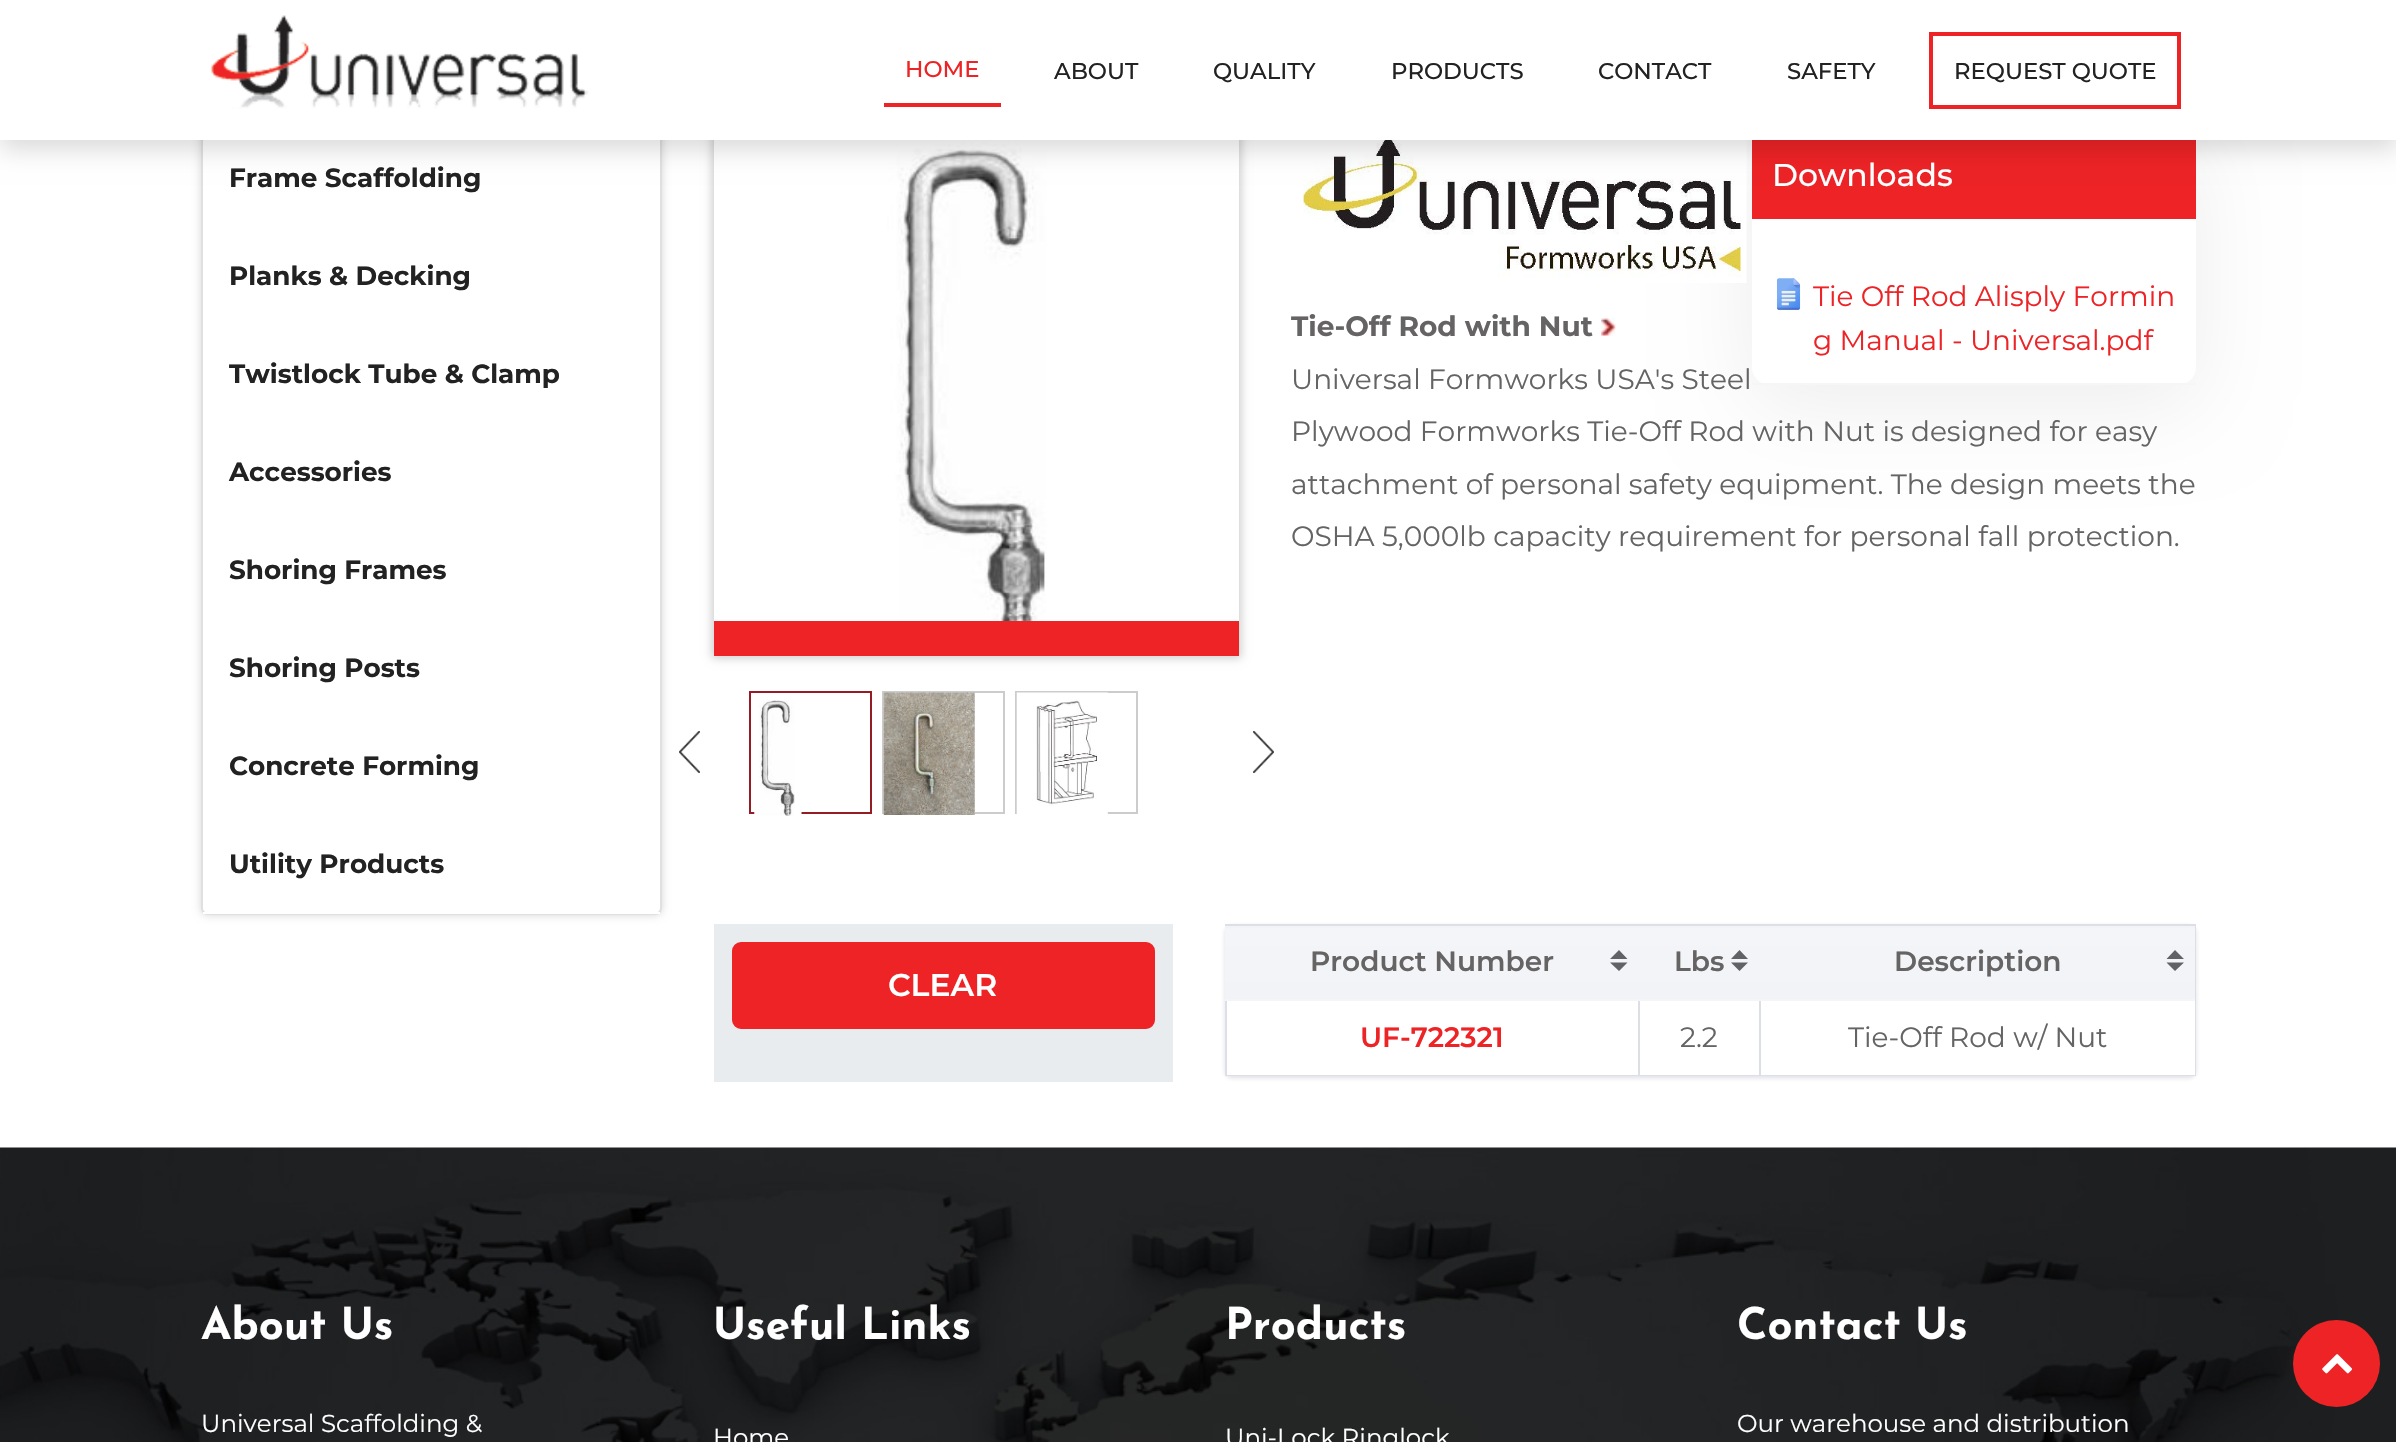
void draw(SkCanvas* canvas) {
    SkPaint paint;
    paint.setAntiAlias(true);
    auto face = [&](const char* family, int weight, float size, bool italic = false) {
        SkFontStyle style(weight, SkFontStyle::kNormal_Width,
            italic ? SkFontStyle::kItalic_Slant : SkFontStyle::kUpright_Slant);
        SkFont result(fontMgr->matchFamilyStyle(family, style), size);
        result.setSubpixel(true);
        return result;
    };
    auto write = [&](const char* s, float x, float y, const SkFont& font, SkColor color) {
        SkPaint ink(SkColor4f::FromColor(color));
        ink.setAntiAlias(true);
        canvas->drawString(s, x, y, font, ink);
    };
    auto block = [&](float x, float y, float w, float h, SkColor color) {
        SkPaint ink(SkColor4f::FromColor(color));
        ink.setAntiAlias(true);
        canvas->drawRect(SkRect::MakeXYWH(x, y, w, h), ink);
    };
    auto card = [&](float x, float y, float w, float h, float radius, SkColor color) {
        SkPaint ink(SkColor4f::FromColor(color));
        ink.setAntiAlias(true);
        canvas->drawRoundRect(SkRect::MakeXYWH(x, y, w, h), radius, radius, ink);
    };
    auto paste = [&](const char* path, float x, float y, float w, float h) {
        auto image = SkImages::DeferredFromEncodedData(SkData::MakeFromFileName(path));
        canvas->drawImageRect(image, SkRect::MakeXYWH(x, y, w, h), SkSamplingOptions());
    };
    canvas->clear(SK_ColorWHITE);
    paint.setColor(SkColorSetARGB(41, 0, 0, 0));
    paint.setMaskFilter(SkMaskFilter::MakeBlur(kNormal_SkBlurStyle, 4.5f));
    canvas->drawRoundRect(SkRect::MakeXYWH(201, -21, 461, 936), 7, 7, paint);
    paint.setMaskFilter(nullptr);
    card(201, -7, 461, 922, 7, SK_ColorWHITE);
    paint.setStyle(SkPaint::kStroke_Style);
    paint.setStrokeWidth(2);
    paint.setColor(SkColorSetARGB(31, 0, 0, 0));
    canvas->drawRoundRect(SkRect::MakeXYWH(202, -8, 459, 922), 6, 6, paint);
    canvas->save();
    canvas->clipPath(SkPathBuilder(SkPathFillType::kEvenOdd).moveTo(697, 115).lineTo(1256, 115).lineTo(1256, 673).lineTo(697, 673).close().moveTo(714, 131).lineTo(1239, 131).lineTo(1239, 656).lineTo(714, 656).close().detach(), true);
    paint.setStyle(SkPaint::kFill_Style);
    paint.setColor(SkColorSetRGB(204, 204, 204));
    paint.setMaskFilter(SkMaskFilter::MakeBlur(kNormal_SkBlurStyle, 4.5f));
    canvas->drawRect(SkRect::MakeXYWH(712, 130, 529, 528), paint);
    paint.setMaskFilter(nullptr);
    canvas->restore();
    paste("pic2.png", 875, 140, 201, 481);
    paint.setColor(SkColorSetARGB(18, 0, 0, 0));
    paint.setMaskFilter(SkMaskFilter::MakeBlur(kNormal_SkBlurStyle, 44));
    canvas->drawRoundRect(SkRect::MakeXYWH(1752, 149, 444, 254), 18, 18, paint);
    paint.setMaskFilter(nullptr);
    paste("pic8.png", 1303, 140, 444, 143);
    card(1752, 131, 444, 254, 18, SK_ColorWHITE);
    block(1752, 140, 444, 79, SkColorSetRGB(237, 35, 38));
    paint.setColor(SkColorSetARGB(38, 0, 0, 0));
    paint.setMaskFilter(SkMaskFilter::MakeBlur(kNormal_SkBlurStyle, 12));
    canvas->drawRect(SkRect::MakeXYWH(0, 9, 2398, 140), paint);
    paint.setMaskFilter(nullptr);
    block(0, 0, 2396, 140, SK_ColorWHITE);
    paste("pic1.png", 210, 15, 379, 94);
    block(884, 103, 117, 4, SkColorSetRGB(237, 35, 38));
    auto kFont1 = face("Montserrat", 500, 22.75f);
    write("HOME", 905, 77, kFont1, SkColorSetRGB(237, 35, 38));
    write("ABOUT", 1054, 79, kFont1, SkColorSetRGB(34, 34, 34));
    write("QUALITY", 1213, 79, kFont1, SkColorSetRGB(34, 34, 34));
    write("PRODUCTS", 1391, 79, kFont1, SkColorSetRGB(34, 34, 34));
    write("CONTACT", 1598, 79, kFont1, SkColorSetRGB(34, 34, 34));
    write("SAFETY", 1787, 79, kFont1, SkColorSetRGB(34, 34, 34));
    paint.setStyle(SkPaint::kStroke_Style);
    paint.setStrokeWidth(4);
    paint.setColor(SkColorSetRGB(237, 35, 38));
    canvas->drawRect(SkRect::MakeXYWH(1931, 34, 248, 73), paint);
    write("REQUEST QUOTE", 1954, 79, kFont1, SkColorSetRGB(34, 34, 34));
    auto kFont2 = face("Montserrat", 700, 26.25f);
    write("Frame Scaffolding", 229, 187, kFont2, SkColorSetRGB(34, 34, 34));
    write("Planks & Decking", 229, 285, kFont2, SkColorSetRGB(34, 34, 34));
    write("Twistlock Tube & Clamp", 229, 383, kFont2, SkColorSetRGB(34, 34, 34));
    write("Accessories", 229, 481, kFont2, SkColorSetRGB(34, 34, 34));
    write("Shoring Frames", 229, 579, kFont2, SkColorSetRGB(34, 34, 34));
    write("Shoring Posts", 229, 677, kFont2, SkColorSetRGB(34, 34, 34));
    write("Concrete Forming", 229, 775, kFont2, SkColorSetRGB(34, 34, 34));
    block(203, 912, 457, 2, SK_ColorWHITE);
    write("Utility Products", 229, 873, kFont2, SkColorSetRGB(34, 34, 34));
    block(714, 621, 525, 35, SkColorSetRGB(237, 35, 38));
    paste("pic3.png", 679, 731, 21, 42);
    paint.setStrokeWidth(2);
    paint.setColor(SkColorSetRGB(149, 27, 37));
    canvas->drawRect(SkRect::MakeXYWH(750, 692, 121, 121), paint);
    paste("pic4.png", 754, 700, 48, 116);
    paint.setColor(SkColorSetRGB(204, 204, 204));
    canvas->drawRect(SkRect::MakeXYWH(883, 692, 121, 121), paint);
    paste("pic5.png", 883, 692, 92, 123);
    canvas->drawRect(SkRect::MakeXYWH(1016, 692, 121, 121), paint);
    paste("pic6.png", 1016, 692, 92, 122);
    paste("pic7.png", 1253, 731, 21, 42);
    auto kFont3 = face("Montserrat", 500, 31.5f);
    write("Downloads", 1772, 186, kFont3, SK_ColorWHITE);
    block(1752, 383, 444, 2, SkColorSetRGB(244, 247, 248));
    paste("pic9.png", 1776, 278, 25, 32);
    auto kFont4 = face("Montserrat", 400, 28);
    write("Tie Off Rod Alisply Formin", 1813, 306, kFont4, SkColorSetRGB(237, 35, 38));
    write("g Manual - Universal.pdf", 1813, 350, kFont4, SkColorSetRGB(237, 35, 38));
    auto kFont5 = face("Montserrat", 700, 28);
    write("Tie-Off Rod with Nut", 1291, 336, kFont5, SkColorSetRGB(101, 99, 99));
    paste("pic10.png", 1601, 318, 15, 18);
    write("Universal Formworks USA's Steel", 1291, 389, kFont4, SkColorSetRGB(101, 99, 99));
    write("Plywood Formworks Tie-Off Rod with Nut is designed for easy", 1291, 441, kFont4, SkColorSetRGB(101, 99, 99));
    write("attachment of personal safety equipment. The design meets the", 1291, 494, kFont4, SkColorSetRGB(101, 99, 99));
    write("OSHA 5,000lb capacity requirement for personal fall protection.", 1291, 546, kFont4, SkColorSetRGB(101, 99, 99));
    block(714, 924, 459, 158, SkColorSetRGB(233, 236, 239));
    paint.setStyle(SkPaint::kFill_Style);
    paint.setColor(SkColorSetRGB(237, 35, 38));
    canvas->drawRoundRect(SkRect::MakeXYWH(733, 943, 421, 85), 8, 8, paint);
    paint.setStyle(SkPaint::kStroke_Style);
    canvas->drawRoundRect(SkRect::MakeXYWH(733, 943, 421, 85), 8, 8, paint);
    auto kFont6 = face("Montserrat", 600, 31.5f);
    write("CLEAR", 888, 996, kFont6, SK_ColorWHITE);
    paint.setStyle(SkPaint::kFill_Style);
    paint.setColor(SkColorSetARGB(15, 50, 50, 93));
    paint.setMaskFilter(SkMaskFilter::MakeBlur(kNormal_SkBlurStyle, 2));
    canvas->drawRoundRect(SkRect::MakeXYWH(1225, 926, 971, 152), 7, 7, paint);
    paint.setMaskFilter(nullptr);
    paint.setColor(SkColorSetARGB(26, 50, 50, 93));
    paint.setMaskFilter(SkMaskFilter::MakeBlur(kNormal_SkBlurStyle, 2.5f));
    canvas->drawRoundRect(SkRect::MakeXYWH(1225, 926, 971, 152), 7, 7, paint);
    paint.setMaskFilter(nullptr);
    block(1227, 1001, 968, 74, SK_ColorWHITE);
    block(1225, 924, 971, 2, SkColorSetRGB(220, 223, 230));
    block(2195, 924, 1, 152, SkColorSetRGB(220, 223, 230));
    block(1225, 1075, 971, 1, SkColorSetRGB(220, 223, 230));
    block(1225, 924, 2, 152, SkColorSetRGB(220, 223, 230));
    {
        const SkColor colors[] = {SkColorSetRGB(244, 245, 248), SkColorSetRGB(241, 243, 246)};
        const float stops[] = {0, 1};
        const SkPoint ends[] = {{1432, 856}, {1432, 928}};
        paint.setShader(SkGradientShader::MakeLinear(ends, colors, stops, 2, SkTileMode::kClamp));
        paint.setAlpha(255);
    }
    canvas->drawRect(SkRect::MakeXYWH(1225, 926, 413, 2), paint);
    {
        const SkColor colors[] = {SkColorSetRGB(244, 245, 248), SkColorSetRGB(241, 243, 246)};
        const float stops[] = {0, 1};
        const SkPoint ends[] = {{1432, 928}, {1432, 999}};
        paint.setShader(SkGradientShader::MakeLinear(ends, colors, stops, 2, SkTileMode::kClamp));
        paint.setAlpha(255);
    }
    canvas->drawRect(SkRect::MakeXYWH(1225, 928, 413, 71), paint);
    {
        const SkColor colors[] = {SkColorSetRGB(244, 245, 248), SkColorSetRGB(241, 243, 246)};
        const float stops[] = {0, 1};
        const SkPoint ends[] = {{1432, 999}, {1432, 1071}};
        paint.setShader(SkGradientShader::MakeLinear(ends, colors, stops, 2, SkTileMode::kClamp));
        paint.setAlpha(255);
    }
    canvas->drawRect(SkRect::MakeXYWH(1225, 999, 413, 2), paint);
    auto kFont7 = face("Montserrat", 600, 28);
    write("Product Number", 1310, 971, kFont7, SkColorSetRGB(101, 99, 99));
    paint.setShader(nullptr);
    paint.setColor(SkColorSetRGB(96, 98, 102));
    canvas->drawPath(SkPathBuilder().moveTo(1610, 962.5f).lineTo(1627.5f, 962.5f).lineTo(1619, 971).close().moveTo(1627.5f, 959).lineTo(1610, 959).lineTo(1619, 950).close().detach(), paint);
    {
        const SkColor colors[] = {SkColorSetRGB(244, 245, 248), SkColorSetRGB(241, 243, 246)};
        const float stops[] = {0, 1};
        const SkPoint ends[] = {{1698, 856}, {1698, 928}};
        paint.setShader(SkGradientShader::MakeLinear(ends, colors, stops, 2, SkTileMode::kClamp));
        paint.setAlpha(255);
    }
    canvas->drawRect(SkRect::MakeXYWH(1638, 926, 121, 2), paint);
    {
        const SkColor colors[] = {SkColorSetRGB(244, 245, 248), SkColorSetRGB(241, 243, 246)};
        const float stops[] = {0, 1};
        const SkPoint ends[] = {{1698, 928}, {1698, 999}};
        paint.setShader(SkGradientShader::MakeLinear(ends, colors, stops, 2, SkTileMode::kClamp));
        paint.setAlpha(255);
    }
    canvas->drawRect(SkRect::MakeXYWH(1638, 928, 121, 71), paint);
    block(1638, 999, 2, 77, SkColorSetRGB(220, 223, 230));
    {
        const SkColor colors[] = {SkColorSetRGB(244, 245, 248), SkColorSetRGB(241, 243, 246)};
        const float stops[] = {0, 1};
        const SkPoint ends[] = {{1698, 999}, {1698, 1071}};
        paint.setShader(SkGradientShader::MakeLinear(ends, colors, stops, 2, SkTileMode::kClamp));
        paint.setAlpha(255);
    }
    canvas->drawRect(SkRect::MakeXYWH(1638, 999, 121, 2), paint);
    write("Lbs", 1674, 971, kFont7, SkColorSetRGB(101, 99, 99));
    paint.setShader(nullptr);
    paint.setColor(SkColorSetRGB(96, 98, 102));
    canvas->drawPath(SkPathBuilder().moveTo(1731, 962.5f).lineTo(1748, 962.5f).lineTo(1739.5f, 971).close().moveTo(1748, 959).lineTo(1731, 959).lineTo(1739.5f, 950).close().detach(), paint);
    {
        const SkColor colors[] = {SkColorSetRGB(244, 245, 248), SkColorSetRGB(241, 243, 246)};
        const float stops[] = {0, 1};
        const SkPoint ends[] = {{1977, 856}, {1977, 928}};
        paint.setShader(SkGradientShader::MakeLinear(ends, colors, stops, 2, SkTileMode::kClamp));
        paint.setAlpha(255);
    }
    canvas->drawRect(SkRect::MakeXYWH(1759, 926, 436, 2), paint);
    {
        const SkColor colors[] = {SkColorSetRGB(244, 245, 248), SkColorSetRGB(241, 243, 246)};
        const float stops[] = {0, 1};
        const SkPoint ends[] = {{1977, 928}, {1977, 999}};
        paint.setShader(SkGradientShader::MakeLinear(ends, colors, stops, 2, SkTileMode::kClamp));
        paint.setAlpha(255);
    }
    canvas->drawRect(SkRect::MakeXYWH(1759, 928, 436, 71), paint);
    block(1759, 999, 2, 77, SkColorSetRGB(220, 223, 230));
    {
        const SkColor colors[] = {SkColorSetRGB(244, 245, 248), SkColorSetRGB(241, 243, 246)};
        const float stops[] = {0, 1};
        const SkPoint ends[] = {{1977, 999}, {1977, 1071}};
        paint.setShader(SkGradientShader::MakeLinear(ends, colors, stops, 2, SkTileMode::kClamp));
        paint.setAlpha(255);
    }
    canvas->drawRect(SkRect::MakeXYWH(1759, 999, 436, 2), paint);
    write("Description", 1894, 971, kFont7, SkColorSetRGB(101, 99, 99));
    paint.setShader(nullptr);
    paint.setColor(SkColorSetRGB(96, 98, 102));
    canvas->drawPath(SkPathBuilder().moveTo(2166.5f, 962.5f).lineTo(2184, 962.5f).lineTo(2175, 971).close().moveTo(2184, 959).lineTo(2166.5f, 959).lineTo(2175, 950).close().detach(), paint);
    write("UF-722321", 1360, 1047, kFont7, SkColorSetRGB(237, 35, 38));
    write("2.2", 1680, 1047, kFont4, SkColorSetRGB(101, 99, 99));
    write("Tie-Off Rod w/ Nut", 1848, 1047, kFont4, SkColorSetRGB(101, 99, 99));
    paste("pic11.png", 0, 1147, 2396, 295);
    auto kFont8 = face("Josefin Sans", 700, 43.75f);
    write("About Us", 201, 1339, kFont8, SK_ColorWHITE);
    auto kFont9 = face("Montserrat", 400, 24.5f);
    write("Universal Scaffolding &", 201, 1432, kFont9, SK_ColorWHITE);
    write("Useful Links", 713, 1339, kFont8, SK_ColorWHITE);
    write("Home", 713, 1446, kFont9, SK_ColorWHITE);
    write("Products", 1225, 1339, kFont8, SK_ColorWHITE);
    write("Uni-Lock Ringlock", 1225, 1446, kFont9, SK_ColorWHITE);
    write("Contact Us", 1737, 1339, kFont8, SK_ColorWHITE);
    write("Our warehouse and distribution", 1737, 1432, kFont9, SK_ColorWHITE);
    paint.setColor(SkColorSetRGB(237, 35, 38));
    canvas->drawCircle(2336.5f, 1363.5f, 43.5f, paint);
    paste("pic12.png", 2322, 1354, 31, 20);
}
